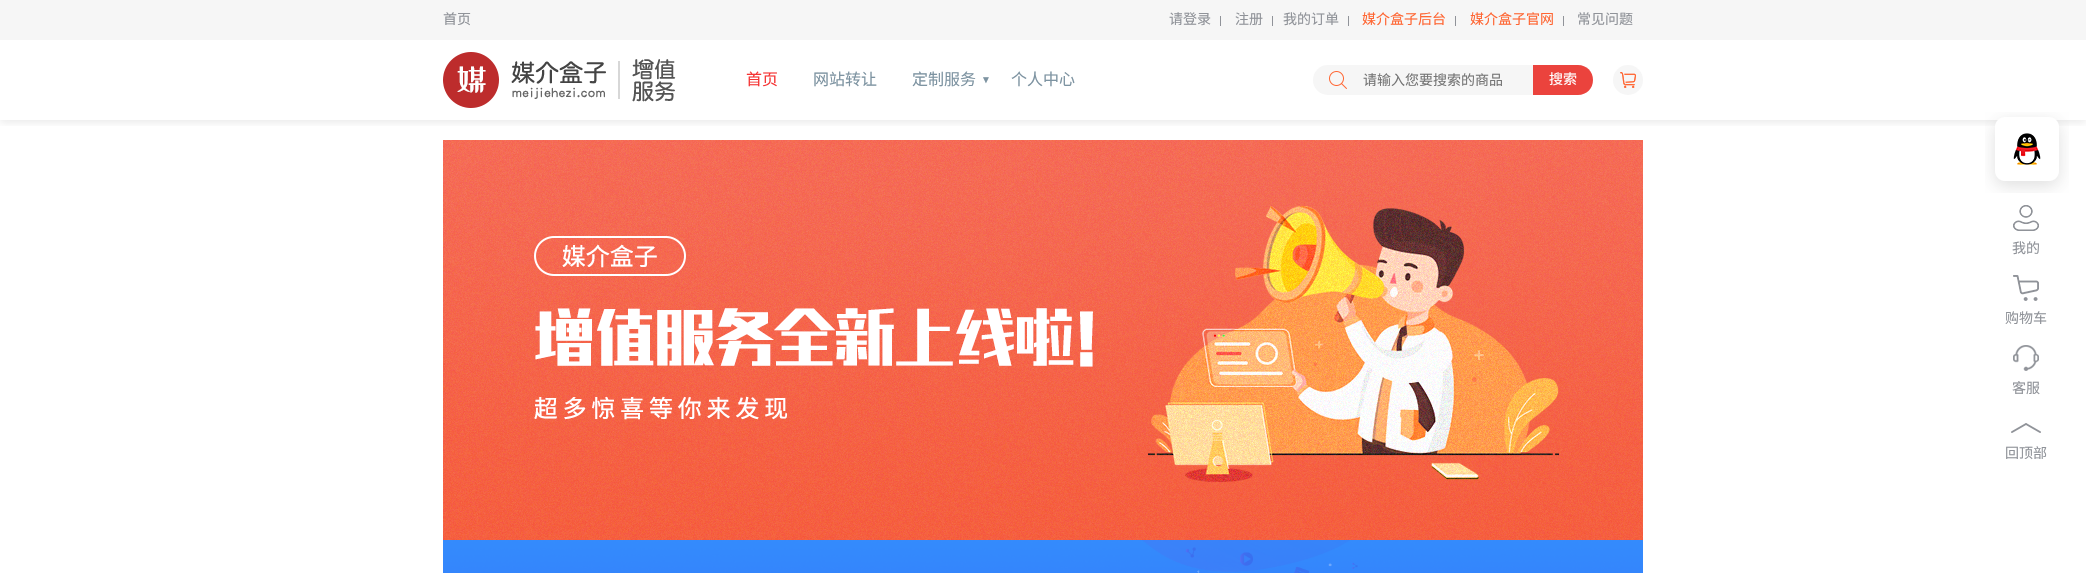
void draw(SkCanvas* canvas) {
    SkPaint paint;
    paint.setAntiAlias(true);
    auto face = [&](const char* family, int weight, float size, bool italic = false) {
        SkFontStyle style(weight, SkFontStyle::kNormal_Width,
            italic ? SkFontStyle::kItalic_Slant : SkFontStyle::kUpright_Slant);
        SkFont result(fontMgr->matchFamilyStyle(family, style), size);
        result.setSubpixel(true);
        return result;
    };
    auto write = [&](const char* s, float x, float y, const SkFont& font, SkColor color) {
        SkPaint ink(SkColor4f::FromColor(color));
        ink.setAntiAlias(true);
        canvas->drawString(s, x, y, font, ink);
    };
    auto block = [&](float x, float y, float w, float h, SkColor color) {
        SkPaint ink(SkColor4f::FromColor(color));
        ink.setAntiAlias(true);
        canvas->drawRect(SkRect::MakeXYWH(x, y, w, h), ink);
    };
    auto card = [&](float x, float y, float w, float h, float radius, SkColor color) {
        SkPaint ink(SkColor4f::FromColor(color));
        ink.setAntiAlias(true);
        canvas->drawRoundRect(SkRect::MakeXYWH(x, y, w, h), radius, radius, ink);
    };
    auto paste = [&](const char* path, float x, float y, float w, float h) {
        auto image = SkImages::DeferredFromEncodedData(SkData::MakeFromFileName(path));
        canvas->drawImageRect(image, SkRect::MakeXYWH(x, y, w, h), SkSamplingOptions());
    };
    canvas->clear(SK_ColorWHITE);
    canvas->save();
    canvas->clipRect(SkRect::MakeXYWH(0, 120, 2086, 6));
    paint.setColor(SkColorSetARGB(26, 15, 16, 16));
    paint.setMaskFilter(SkMaskFilter::MakeBlur(kNormal_SkBlurStyle, 4.5f));
    canvas->drawRect(SkRect::MakeXYWH(0, 2, 2086, 120), paint);
    paint.setMaskFilter(nullptr);
    canvas->restore();
    block(0, 0, 2086, 40, SkColorSetRGB(246, 246, 246));
    auto kFont1 = face("Noto Sans CJK SC", 400, 14);
    write("首页", 443, 24, kFont1, SkColorSetRGB(144, 147, 153));
    write("请登录", 1169, 24, kFont1, SkColorSetRGB(144, 147, 153));
    block(1220, 16, 1, 10, SkColorSetRGB(144, 147, 153));
    write("注册", 1235, 24, kFont1, SkColorSetRGB(144, 147, 153));
    block(1272, 16, 1, 10, SkColorSetRGB(144, 147, 153));
    write("我的订单", 1283, 24, kFont1, SkColorSetRGB(144, 147, 153));
    block(1348, 16, 1, 10, SkColorSetRGB(144, 147, 153));
    write("媒介盒子后台", 1362, 24, kFont1, SkColorSetRGB(255, 102, 51));
    block(1455, 16, 1, 10, SkColorSetRGB(144, 147, 153));
    write("媒介盒子官网", 1470, 24, kFont1, SkColorSetRGB(255, 102, 51));
    block(1563, 16, 1, 10, SkColorSetRGB(144, 147, 153));
    write("常见问题", 1577, 24, kFont1, SkColorSetRGB(144, 147, 153));
    paste("pic1.png", 443, 52, 233, 56);
    auto kFont2 = face("Noto Sans CJK SC", 400, 16);
    write("首页", 746, 85, kFont2, SkColorSetRGB(245, 52, 52));
    write("网站转让", 813, 85, kFont2, SkColorSetRGB(125, 147, 161));
    write("定制服务", 912, 85, kFont2, SkColorSetRGB(125, 147, 161));
    auto kFont3 = face("Liberation Serif", 400, 10);
    write("▼", 981, 83, kFont3, SkColorSetRGB(125, 147, 161));
    write("个人中心", 1011, 85, kFont2, SkColorSetRGB(125, 147, 161));
    card(1313, 65, 280, 30, 15, SkColorSetRGB(246, 246, 246));
    paste("pic2.png", 1329, 71, 18, 18);
    write("请输入您要搜索的商品", 1363, 85, kFont1, SkColorSetRGB(117, 117, 117));
    paint.setColor(SkColorSetRGB(235, 67, 61));
    canvas->drawPath(SkPathBuilder().moveTo(1533, 65).lineTo(1578, 65).cubicTo(1586.5f, 65, 1593, 71.5f, 1593, 80).cubicTo(1593, 88.5f, 1586.5f, 95, 1578, 95).lineTo(1533, 95).close().detach(), paint);
    write("搜索", 1549, 84, kFont1, SK_ColorWHITE);
    paint.setColor(SkColorSetRGB(246, 246, 246));
    canvas->drawCircle(1628, 80, 15, paint);
    paste("pic3.png", 1620, 72, 16, 16);
    paste("pic4.png", 443, 140, 1200, 400);
    paste("pic5.png", 443, 540, 1200, 33);
    paste("pic6.png", 1985, 112, 84, 81);
    paste("pic7.png", 2013, 205, 26, 26);
    write("我的", 2012, 253, kFont1, SkColorSetRGB(144, 147, 153));
    paste("pic8.png", 2013, 275, 26, 26);
    write("购物车", 2005, 323, kFont1, SkColorSetRGB(144, 147, 153));
    paste("pic9.png", 2013, 345, 26, 26);
    write("客服", 2012, 393, kFont1, SkColorSetRGB(144, 147, 153));
    paste("pic10.png", 2011, 423, 30, 10);
    write("回顶部", 2005, 458, kFont1, SkColorSetRGB(144, 147, 153));
}
